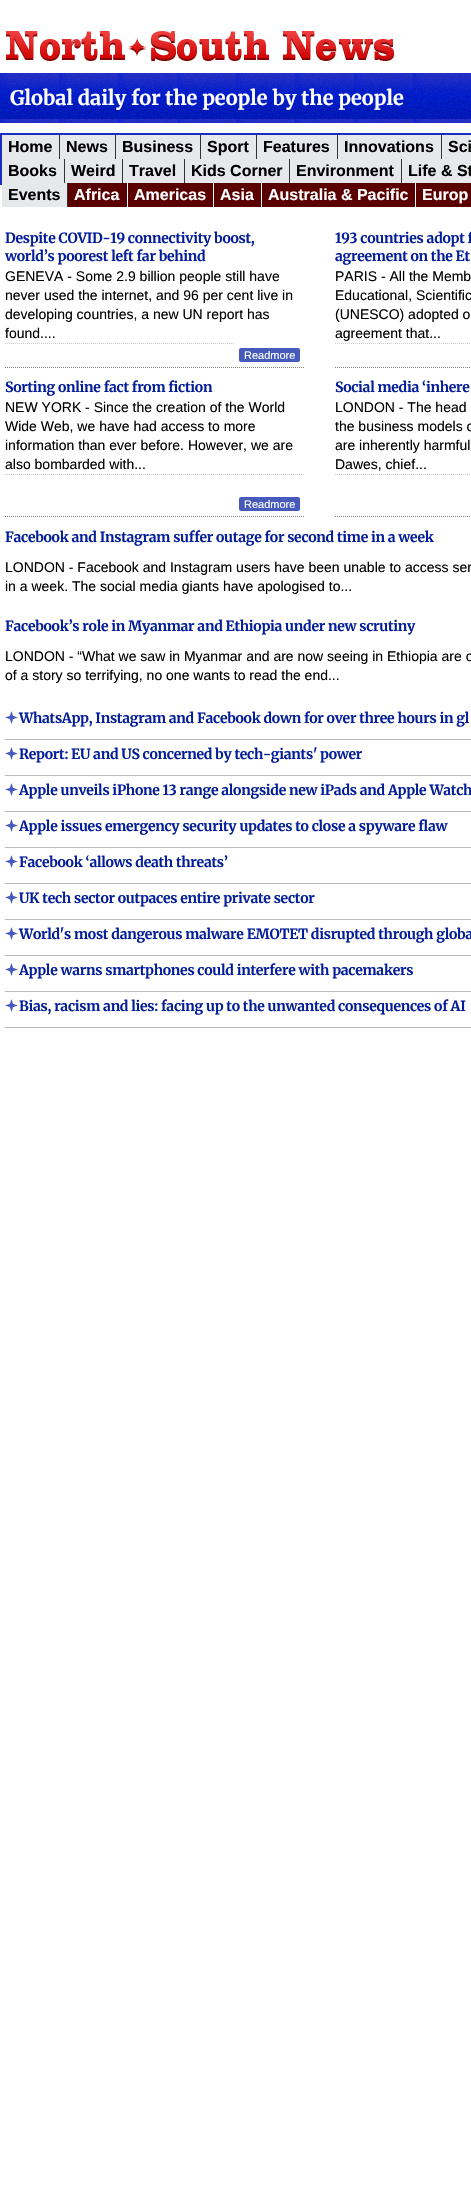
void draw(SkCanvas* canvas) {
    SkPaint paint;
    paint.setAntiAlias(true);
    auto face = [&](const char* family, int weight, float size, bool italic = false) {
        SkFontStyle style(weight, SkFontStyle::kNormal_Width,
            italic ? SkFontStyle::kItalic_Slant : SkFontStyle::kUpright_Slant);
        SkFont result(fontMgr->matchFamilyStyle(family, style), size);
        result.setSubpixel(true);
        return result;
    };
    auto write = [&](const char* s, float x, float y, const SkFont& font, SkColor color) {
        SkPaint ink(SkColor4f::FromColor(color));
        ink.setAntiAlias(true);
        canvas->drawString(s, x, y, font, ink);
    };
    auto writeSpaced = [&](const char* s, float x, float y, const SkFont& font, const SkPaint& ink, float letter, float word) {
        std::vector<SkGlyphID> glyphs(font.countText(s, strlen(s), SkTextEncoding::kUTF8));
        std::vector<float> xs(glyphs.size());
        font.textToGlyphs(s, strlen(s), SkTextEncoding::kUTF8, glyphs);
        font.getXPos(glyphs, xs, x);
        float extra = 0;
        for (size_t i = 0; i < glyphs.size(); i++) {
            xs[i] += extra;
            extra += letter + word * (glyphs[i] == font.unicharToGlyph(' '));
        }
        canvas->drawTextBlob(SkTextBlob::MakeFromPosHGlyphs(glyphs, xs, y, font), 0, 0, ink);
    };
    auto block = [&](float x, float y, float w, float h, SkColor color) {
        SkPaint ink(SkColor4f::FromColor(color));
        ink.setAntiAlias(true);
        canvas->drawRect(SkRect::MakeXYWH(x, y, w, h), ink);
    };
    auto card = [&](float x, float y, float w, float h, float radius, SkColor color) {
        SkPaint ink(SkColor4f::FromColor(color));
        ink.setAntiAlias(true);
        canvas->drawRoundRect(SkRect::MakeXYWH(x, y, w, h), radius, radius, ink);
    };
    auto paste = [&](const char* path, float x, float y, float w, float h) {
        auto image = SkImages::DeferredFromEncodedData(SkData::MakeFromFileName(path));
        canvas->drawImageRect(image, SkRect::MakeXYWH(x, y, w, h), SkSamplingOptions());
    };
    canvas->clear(SK_ColorWHITE);
    paste("pic1.png", 6, 31, 388, 30);
    paste("pic2.png", 0, 73, 471, 50);
    auto kFont1 = face("Merriweather", 700, 20);
    write("Global daily for the people by the people", 10, 105, kFont1, SK_ColorWHITE);
    paint.setStyle(SkPaint::kStroke_Style);
    paint.setStrokeWidth(2);
    paint.setColor(SkColorSetRGB(24, 45, 193));
    canvas->drawRect(SkRect::MakeXYWH(1, 134, 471, 50), paint);
    block(2, 135, 57, 24, SkColorSetRGB(231, 232, 236));
    block(59, 135, 1, 24, SkColorSetRGB(51, 51, 51));
    auto kFont2 = face("Liberation Sans", 700, 16);
    write("Home", 8, 152, kFont2, SK_ColorBLACK);
    block(60, 135, 55, 24, SkColorSetRGB(231, 232, 236));
    block(115, 135, 1, 24, SkColorSetRGB(51, 51, 51));
    write("News", 66, 152, kFont2, SK_ColorBLACK);
    block(116, 135, 84, 24, SkColorSetRGB(231, 232, 236));
    block(200, 135, 1, 24, SkColorSetRGB(51, 51, 51));
    write("Business", 122, 152, kFont2, SK_ColorBLACK);
    block(201, 135, 55, 24, SkColorSetRGB(231, 232, 236));
    block(256, 135, 1, 24, SkColorSetRGB(51, 51, 51));
    write("Sport", 207, 152, kFont2, SK_ColorBLACK);
    block(257, 135, 80, 24, SkColorSetRGB(231, 232, 236));
    block(337, 135, 1, 24, SkColorSetRGB(51, 51, 51));
    write("Features", 263, 152, kFont2, SK_ColorBLACK);
    block(338, 135, 103, 24, SkColorSetRGB(231, 232, 236));
    block(441, 135, 1, 24, SkColorSetRGB(51, 51, 51));
    write("Innovations", 344, 152, kFont2, SK_ColorBLACK);
    block(442, 135, 29, 24, SkColorSetRGB(231, 232, 236));
    write("Sci", 448, 152, kFont2, SK_ColorBLACK);
    block(2, 159, 62, 24, SkColorSetRGB(231, 232, 236));
    block(64, 159, 1, 24, SkColorSetRGB(51, 51, 51));
    write("Books", 8, 176, kFont2, SK_ColorBLACK);
    block(65, 159, 57, 24, SkColorSetRGB(231, 232, 236));
    block(122, 159, 1, 24, SkColorSetRGB(51, 51, 51));
    write("Weird", 71, 176, kFont2, SK_ColorBLACK);
    block(123, 159, 61, 24, SkColorSetRGB(231, 232, 236));
    block(184, 159, 1, 24, SkColorSetRGB(51, 51, 51));
    write("Travel", 129, 176, kFont2, SK_ColorBLACK);
    block(185, 159, 104, 24, SkColorSetRGB(231, 232, 236));
    block(289, 159, 1, 24, SkColorSetRGB(51, 51, 51));
    write("Kids Corner", 191, 176, kFont2, SK_ColorBLACK);
    block(290, 159, 111, 24, SkColorSetRGB(231, 232, 236));
    block(401, 159, 1, 24, SkColorSetRGB(51, 51, 51));
    write("Environment", 296, 176, kFont2, SK_ColorBLACK);
    block(402, 159, 69, 24, SkColorSetRGB(231, 232, 236));
    write("Life & St", 408, 176, kFont2, SK_ColorBLACK);
    block(2, 183, 65, 24, SkColorSetRGB(231, 232, 236));
    block(67, 183, 1, 24, SkColorSetRGB(51, 51, 51));
    write("Events", 8, 200, kFont2, SK_ColorBLACK);
    block(68, 183, 59, 24, SkColorSetRGB(91, 0, 0));
    block(127, 183, 1, 2, SK_ColorWHITE);
    write("Africa", 74, 200, kFont2, SK_ColorWHITE);
    block(128, 183, 85, 24, SkColorSetRGB(91, 0, 0));
    block(213, 183, 1, 2, SK_ColorWHITE);
    write("Americas", 134, 200, kFont2, SK_ColorWHITE);
    block(214, 183, 47, 24, SkColorSetRGB(91, 0, 0));
    block(261, 183, 1, 2, SK_ColorWHITE);
    write("Asia", 220, 200, kFont2, SK_ColorWHITE);
    block(262, 183, 153, 24, SkColorSetRGB(91, 0, 0));
    block(415, 183, 1, 2, SK_ColorWHITE);
    write("Australia & Pacific", 268, 200, kFont2, SK_ColorWHITE);
    block(416, 183, 55, 24, SkColorSetRGB(91, 0, 0));
    write("Europ", 422, 200, kFont2, SK_ColorWHITE);
    paint.setStrokeWidth(1);
    paint.setColor(SkColorSetRGB(128, 128, 128));
    paint.setPathEffect(SkDashPathEffect::Make({{1, 1}}, 0));
    canvas->drawPath(SkPathBuilder().moveTo(5, 367.5f).lineTo(305, 367.5f).detach(), paint);
    paint.setPathEffect(nullptr);
    auto kFont3 = face("Merriweather", 700, 14);
    paint.setStyle(SkPaint::kFill_Style);
    paint.setColor(SkColorSetRGB(4, 30, 153));
    writeSpaced("Despite COVID-19 connectivity boost,", 5, 243, kFont3, paint, -0.28f, 0);
    writeSpaced("world’s poorest left far behind", 5, 261, kFont3, paint, -0.28f, 0);
    auto kFont4 = face("Liberation Sans", 400, 14);
    write("GENEVA - Some 2.9 billion people still have", 5, 281, kFont4, SK_ColorBLACK);
    write("never used the internet, and 96 per cent live in", 5, 300, kFont4, SK_ColorBLACK);
    write("developing countries, a new UN report has", 5, 319, kFont4, SK_ColorBLACK);
    write("found....", 5, 338, kFont4, SK_ColorBLACK);
    paint.setStyle(SkPaint::kStroke_Style);
    paint.setColor(SkColorSetRGB(204, 204, 204));
    paint.setPathEffect(SkDashPathEffect::Make({{1, 1}}, 0));
    canvas->drawPath(SkPathBuilder().moveTo(5, 343.5f).lineTo(305, 343.5f).detach(), paint);
    paint.setPathEffect(nullptr);
    block(235, 343, 69, 1, SK_ColorWHITE);
    card(239, 348, 61, 14, 2, SkColorSetRGB(69, 90, 187));
    auto kFont5 = face("Liberation Sans", 400, 11);
    write("Readmore", 244, 359, kFont5, SK_ColorWHITE);
    paint.setColor(SkColorSetRGB(128, 128, 128));
    paint.setPathEffect(SkDashPathEffect::Make({{1, 1}}, 0));
    canvas->drawPath(SkPathBuilder().moveTo(335, 367.5f).lineTo(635, 367.5f).detach(), paint);
    paint.setPathEffect(nullptr);
    paint.setStyle(SkPaint::kFill_Style);
    paint.setColor(SkColorSetRGB(4, 30, 153));
    writeSpaced("193 countries adopt f", 335, 243, kFont3, paint, -0.28f, 0);
    writeSpaced("agreement on the Et", 335, 261, kFont3, paint, -0.28f, 0);
    write("PARIS - All the Memb", 335, 281, kFont4, SK_ColorBLACK);
    write("Educational, Scientific", 335, 300, kFont4, SK_ColorBLACK);
    write("(UNESCO) adopted o", 335, 319, kFont4, SK_ColorBLACK);
    write("agreement that...", 335, 338, kFont4, SK_ColorBLACK);
    paint.setStyle(SkPaint::kStroke_Style);
    paint.setColor(SkColorSetRGB(204, 204, 204));
    paint.setPathEffect(SkDashPathEffect::Make({{1, 1}}, 0));
    canvas->drawPath(SkPathBuilder().moveTo(335, 343.5f).lineTo(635, 343.5f).detach(), paint);
    paint.setPathEffect(nullptr);
    paint.setColor(SkColorSetRGB(128, 128, 128));
    paint.setPathEffect(SkDashPathEffect::Make({{1, 1}}, 0));
    canvas->drawPath(SkPathBuilder().moveTo(5, 516.5f).lineTo(305, 516.5f).detach(), paint);
    paint.setPathEffect(nullptr);
    paint.setStyle(SkPaint::kFill_Style);
    paint.setColor(SkColorSetRGB(4, 30, 153));
    writeSpaced("Sorting online fact from fiction", 5, 392, kFont3, paint, -0.28f, 0);
    write("NEW YORK - Since the creation of the World", 5, 412, kFont4, SK_ColorBLACK);
    write("Wide Web, we have had access to more", 5, 431, kFont4, SK_ColorBLACK);
    write("information than ever before. However, we are", 5, 450, kFont4, SK_ColorBLACK);
    write("also bombarded with...", 5, 469, kFont4, SK_ColorBLACK);
    paint.setStyle(SkPaint::kStroke_Style);
    paint.setColor(SkColorSetRGB(204, 204, 204));
    paint.setPathEffect(SkDashPathEffect::Make({{1, 1}}, 0));
    canvas->drawPath(SkPathBuilder().moveTo(5, 474.5f).lineTo(305, 474.5f).detach(), paint);
    paint.setPathEffect(nullptr);
    card(239, 497, 61, 14, 2, SkColorSetRGB(69, 90, 187));
    write("Readmore", 244, 508, kFont5, SK_ColorWHITE);
    paint.setColor(SkColorSetRGB(128, 128, 128));
    paint.setPathEffect(SkDashPathEffect::Make({{1, 1}}, 0));
    canvas->drawPath(SkPathBuilder().moveTo(335, 516.5f).lineTo(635, 516.5f).detach(), paint);
    paint.setPathEffect(nullptr);
    paint.setStyle(SkPaint::kFill_Style);
    paint.setColor(SkColorSetRGB(4, 30, 153));
    writeSpaced("Social media ‘inhere", 335, 392, kFont3, paint, -0.28f, 0);
    write("LONDON - The head", 335, 412, kFont4, SK_ColorBLACK);
    write("the business models o", 335, 431, kFont4, SK_ColorBLACK);
    write("are inherently harmful", 335, 450, kFont4, SK_ColorBLACK);
    write("Dawes, chief...", 335, 469, kFont4, SK_ColorBLACK);
    paint.setStyle(SkPaint::kStroke_Style);
    paint.setColor(SkColorSetRGB(204, 204, 204));
    paint.setPathEffect(SkDashPathEffect::Make({{1, 1}}, 0));
    canvas->drawPath(SkPathBuilder().moveTo(335, 474.5f).lineTo(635, 474.5f).detach(), paint);
    paint.setPathEffect(nullptr);
    paint.setStyle(SkPaint::kFill_Style);
    paint.setColor(SkColorSetRGB(4, 30, 153));
    writeSpaced("Facebook and Instagram suffer outage for second time in a week", 5, 542, kFont3, paint, -0.28f, 0);
    write("LONDON - Facebook and Instagram users have been unable to access ser", 5, 572, kFont4, SK_ColorBLACK);
    write("in a week. The social media giants have apologised to...", 5, 591, kFont4, SK_ColorBLACK);
    writeSpaced("Facebook’s role in Myanmar and Ethiopia under new scrutiny", 5, 631, kFont3, paint, -0.28f, 0);
    write("LONDON - “What we saw in Myanmar and are now seeing in Ethiopia are o", 5, 661, kFont4, SK_ColorBLACK);
    write("of a story so terrifying, no one wants to read the end...", 5, 680, kFont4, SK_ColorBLACK);
    block(5, 739, 466, 1, SkColorSetRGB(187, 187, 187));
    paste("pic3.png", 5, 711, 13, 13);
    writeSpaced("WhatsApp, Instagram and Facebook down for over three hours in gl", 19, 723, kFont3, paint, -0.28f, 0);
    block(5, 775, 466, 1, SkColorSetRGB(187, 187, 187));
    paste("pic3.png", 5, 747, 13, 13);
    writeSpaced("Report: EU and US concerned by tech-giants' power", 19, 759, kFont3, paint, -0.28f, 0);
    block(5, 811, 466, 1, SkColorSetRGB(187, 187, 187));
    paste("pic3.png", 5, 783, 13, 13);
    writeSpaced("Apple unveils iPhone 13 range alongside new iPads and Apple Watch", 19, 795, kFont3, paint, -0.28f, 0);
    block(5, 847, 466, 1, SkColorSetRGB(187, 187, 187));
    paste("pic3.png", 5, 819, 13, 13);
    writeSpaced("Apple issues emergency security updates to close a spyware flaw", 19, 831, kFont3, paint, -0.28f, 0);
    block(5, 883, 466, 1, SkColorSetRGB(187, 187, 187));
    paste("pic3.png", 5, 855, 13, 13);
    writeSpaced("Facebook ‘allows death threats’", 19, 867, kFont3, paint, -0.28f, 0);
    block(5, 919, 466, 1, SkColorSetRGB(187, 187, 187));
    paste("pic3.png", 5, 891, 13, 13);
    writeSpaced("UK tech sector outpaces entire private sector", 19, 903, kFont3, paint, -0.28f, 0);
    block(5, 955, 466, 1, SkColorSetRGB(187, 187, 187));
    paste("pic3.png", 5, 927, 13, 13);
    writeSpaced("World's most dangerous malware EMOTET disrupted through globa", 19, 939, kFont3, paint, -0.28f, 0);
    block(5, 991, 466, 1, SkColorSetRGB(187, 187, 187));
    paste("pic3.png", 5, 963, 13, 13);
    writeSpaced("Apple warns smartphones could interfere with pacemakers", 19, 975, kFont3, paint, -0.28f, 0);
    block(5, 1027, 466, 1, SkColorSetRGB(187, 187, 187));
    paste("pic3.png", 5, 999, 13, 13);
    writeSpaced("Bias, racism and lies: facing up to the unwanted consequences of AI", 19, 1011, kFont3, paint, -0.28f, 0);
}
